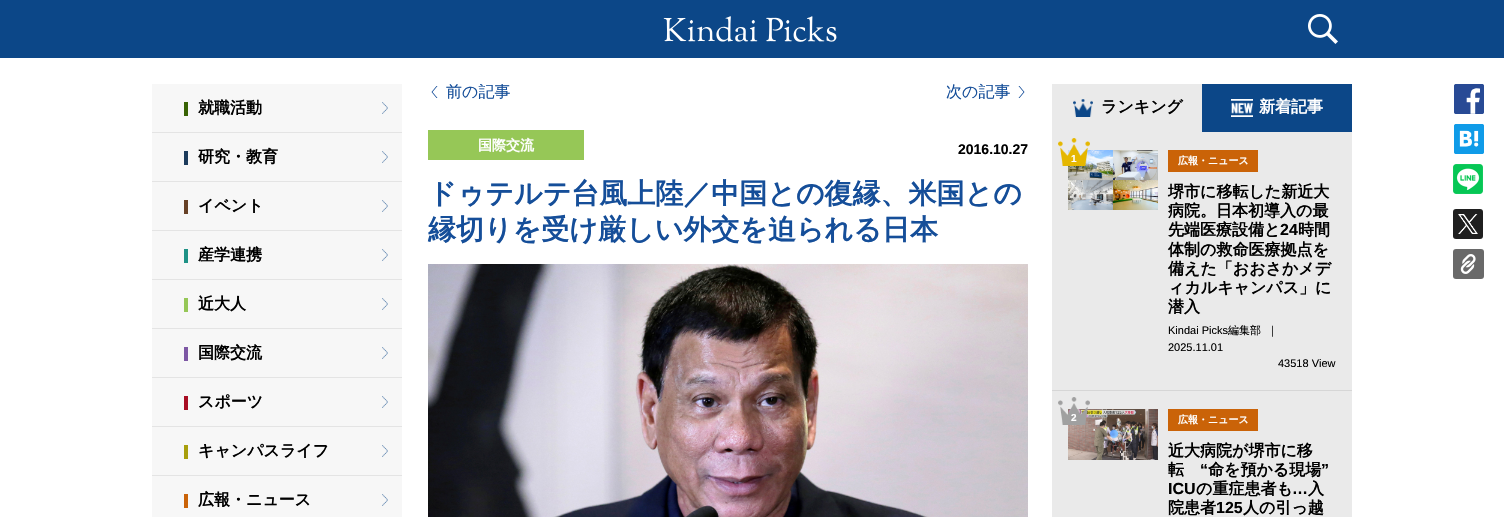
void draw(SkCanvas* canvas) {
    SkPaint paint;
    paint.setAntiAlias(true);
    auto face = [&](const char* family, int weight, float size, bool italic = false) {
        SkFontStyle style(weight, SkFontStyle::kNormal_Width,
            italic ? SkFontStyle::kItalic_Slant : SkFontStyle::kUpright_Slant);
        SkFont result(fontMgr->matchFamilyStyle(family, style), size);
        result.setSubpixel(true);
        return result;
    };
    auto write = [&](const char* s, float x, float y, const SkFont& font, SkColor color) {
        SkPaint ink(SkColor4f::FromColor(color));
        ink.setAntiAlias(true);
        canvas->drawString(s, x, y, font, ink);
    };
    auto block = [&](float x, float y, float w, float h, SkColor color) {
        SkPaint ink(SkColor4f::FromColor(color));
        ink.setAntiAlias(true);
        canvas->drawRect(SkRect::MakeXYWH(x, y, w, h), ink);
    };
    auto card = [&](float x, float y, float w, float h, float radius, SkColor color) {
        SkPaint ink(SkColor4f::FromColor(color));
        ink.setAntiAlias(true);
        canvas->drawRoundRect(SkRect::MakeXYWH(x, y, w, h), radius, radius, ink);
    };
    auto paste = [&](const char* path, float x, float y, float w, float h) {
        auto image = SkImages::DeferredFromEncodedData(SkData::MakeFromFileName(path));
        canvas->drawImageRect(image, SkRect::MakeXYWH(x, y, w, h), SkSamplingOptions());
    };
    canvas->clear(SK_ColorWHITE);
    block(0, 0, 1504, 58, SkColorSetRGB(12, 71, 136));
    paste("pic1.png", 663, 16, 174, 26);
    paste("pic2.png", 1308, 14, 30, 30);
    block(152, 84, 250, 433, SkColorSetRGB(247, 247, 247));
    block(152, 132, 250, 1, SkColorSetRGB(228, 228, 228));
    paste("pic3.png", 382, 102, 6, 12);
    block(184, 102, 4, 14, SkColorSetRGB(56, 99, 4));
    auto kFont1 = face("WenQuanYi Zen Hei", 700, 16);
    write("就職活動", 198, 113, kFont1, SK_ColorBLACK);
    block(152, 181, 250, 1, SkColorSetRGB(228, 228, 228));
    paste("pic3.png", 382, 151, 6, 12);
    block(184, 151, 4, 14, SkColorSetRGB(28, 59, 92));
    write("研究・教育", 198, 162, kFont1, SK_ColorBLACK);
    block(152, 230, 250, 1, SkColorSetRGB(228, 228, 228));
    paste("pic3.png", 382, 200, 6, 12);
    block(184, 200, 4, 14, SkColorSetRGB(103, 65, 38));
    write("イベント", 198, 211, kFont1, SK_ColorBLACK);
    block(152, 279, 250, 1, SkColorSetRGB(228, 228, 228));
    paste("pic3.png", 382, 249, 6, 12);
    block(184, 249, 4, 14, SkColorSetRGB(30, 146, 134));
    write("産学連携", 198, 260, kFont1, SK_ColorBLACK);
    block(152, 328, 250, 1, SkColorSetRGB(228, 228, 228));
    paste("pic3.png", 382, 298, 6, 12);
    block(184, 298, 4, 14, SkColorSetRGB(150, 199, 87));
    write("近大人", 198, 309, kFont1, SK_ColorBLACK);
    block(152, 377, 250, 1, SkColorSetRGB(228, 228, 228));
    paste("pic3.png", 382, 347, 6, 12);
    block(184, 347, 4, 14, SkColorSetRGB(125, 87, 164));
    write("国際交流", 198, 358, kFont1, SK_ColorBLACK);
    block(152, 426, 250, 1, SkColorSetRGB(228, 228, 228));
    paste("pic3.png", 382, 396, 6, 12);
    block(184, 396, 4, 14, SkColorSetRGB(168, 13, 35));
    write("スポーツ", 198, 407, kFont1, SK_ColorBLACK);
    block(152, 475, 250, 1, SkColorSetRGB(228, 228, 228));
    paste("pic3.png", 382, 445, 6, 12);
    block(184, 445, 4, 14, SkColorSetRGB(168, 159, 13));
    write("キャンパスライフ", 198, 456, kFont1, SK_ColorBLACK);
    paste("pic3.png", 382, 494, 6, 12);
    block(184, 494, 4, 14, SkColorSetRGB(202, 99, 8));
    write("広報・ニュース", 198, 505, kFont1, SK_ColorBLACK);
    paint.setColor(SkColorSetRGB(20, 77, 153));
    canvas->drawPath(SkPathBuilder().moveTo(436.5f, 86).lineTo(437.5f, 86).lineTo(432.5f, 92).lineTo(431.5f, 92).close().moveTo(431.5f, 92).lineTo(432.5f, 92).lineTo(437.5f, 98).lineTo(436.5f, 98).close().detach(), paint);
    canvas->save();
    canvas->clipRect(SkRect::MakeXYWH(428, 84, 600, 16));
    auto kFont2 = face("WenQuanYi Zen Hei", 500, 16);
    write("前の記事", 446, 97, kFont2, SkColorSetRGB(21, 78, 153));
    canvas->restore();
    write("次の記事", 946, 97, kFont2, SkColorSetRGB(21, 78, 153));
    canvas->drawPath(SkPathBuilder().moveTo(1018.5f, 86).lineTo(1019.5f, 86).lineTo(1024.5f, 92).lineTo(1023.5f, 92).close().moveTo(1023.5f, 92).lineTo(1024.5f, 92).lineTo(1019.5f, 98).lineTo(1018.5f, 98).close().detach(), paint);
    block(428, 130, 156, 30, SkColorSetRGB(150, 199, 87));
    auto kFont3 = face("WenQuanYi Zen Hei", 700, 14);
    write("国際交流", 478, 150, kFont3, SK_ColorWHITE);
    auto kFont4 = face("Liberation Sans", 700, 14);
    write("2016.10.27", 958, 154, kFont4, SK_ColorBLACK);
    auto kFont5 = face("WenQuanYi Zen Hei", 700, 28);
    write("ドゥテルテ台風上陸／中国との復縁、米国との", 428, 203, kFont5, SkColorSetRGB(21, 78, 153));
    write("縁切りを受け厳しい外交を迫られる日本", 428, 239, kFont5, SkColorSetRGB(21, 78, 153));
    paste("pic4.png", 428, 264, 600, 253);
    block(1052, 84, 300, 433, SkColorSetRGB(234, 234, 234));
    paste("pic5.png", 1073, 99, 20, 18);
    write("ランキング", 1101, 112, kFont1, SK_ColorBLACK);
    block(1202, 84, 150, 48, SkColorSetRGB(12, 71, 136));
    paste("pic6.png", 1231, 99, 22, 18);
    write("新着記事", 1259, 112, kFont1, SK_ColorWHITE);
    paste("pic7.png", 1068, 150, 90, 60);
    paste("pic8.png", 1058, 138, 32, 28);
    auto kFont6 = face("Liberation Sans", 700, 10);
    write("1", 1071, 162, kFont6, SK_ColorWHITE);
    block(1168, 150, 90, 22, SkColorSetRGB(202, 99, 8));
    auto kFont7 = face("WenQuanYi Zen Hei", 700, 10);
    write("広報・ニュース", 1178, 164, kFont7, SK_ColorWHITE);
    write("堺市に移転した新近大", 1168, 197, kFont1, SK_ColorBLACK);
    write("病院。日本初導入の最", 1168, 216, kFont1, SK_ColorBLACK);
    write("先端医療設備と", 1168, 235, kFont1, SK_ColorBLACK);
    auto kFont8 = face("Liberation Sans", 700, 16);
    write("24", 1280, 235, kFont8, SK_ColorBLACK);
    write("時間", 1298, 235, kFont1, SK_ColorBLACK);
    write("体制の救命医療拠点を", 1168, 255, kFont1, SK_ColorBLACK);
    write("備えた「おおさかメデ", 1168, 274, kFont1, SK_ColorBLACK);
    write("ィカルキャンパス」に", 1168, 293, kFont1, SK_ColorBLACK);
    write("潜入", 1168, 312, kFont1, SK_ColorBLACK);
    auto kFont9 = face("Liberation Sans", 400, 11);
    write("Kindai Picks", 1168, 334, kFont9, SK_ColorBLACK);
    auto kFont10 = face("WenQuanYi Zen Hei", 500, 11);
    write("編集部", 1228, 334, kFont10, SK_ColorBLACK);
    write("｜", 1267, 334, kFont10, SK_ColorBLACK);
    write("2025.11.01", 1168, 351, kFont9, SK_ColorBLACK);
    write("43518 View", 1278, 367, kFont9, SK_ColorBLACK);
    block(1052, 390, 300, 1, SkColorSetRGB(214, 214, 214));
    paste("pic9.png", 1068, 409, 90, 51);
    paste("pic10.png", 1058, 397, 32, 28);
    write("2", 1071, 421, kFont6, SK_ColorWHITE);
    block(1168, 409, 90, 22, SkColorSetRGB(202, 99, 8));
    write("広報・ニュース", 1178, 423, kFont7, SK_ColorWHITE);
    write("近大病院が堺市に移", 1168, 456, kFont1, SK_ColorBLACK);
    write("転", 1168, 475, kFont1, SK_ColorBLACK);
    write("“", 1200, 475, kFont8, SK_ColorBLACK);
    write("命を預かる現場", 1208, 475, kFont1, SK_ColorBLACK);
    write("”", 1321, 475, kFont8, SK_ColorBLACK);
    write("ICU", 1168, 494, kFont8, SK_ColorBLACK);
    write("の重症患者も", 1196, 494, kFont1, SK_ColorBLACK);
    write("…", 1292, 494, kFont8, SK_ColorBLACK);
    write("入", 1308, 494, kFont1, SK_ColorBLACK);
    write("院患者", 1168, 513, kFont1, SK_ColorBLACK);
    write("125", 1216, 513, kFont8, SK_ColorBLACK);
    write("人の引っ越", 1243, 513, kFont1, SK_ColorBLACK);
    paste("pic11.png", 1454, 84, 30, 30);
    paste("pic12.png", 1454, 124, 30, 30);
    paste("pic13.png", 1453, 164, 30, 30);
    card(1453, 209, 30, 30, 3, SkColorSetRGB(31, 31, 31));
    paste("pic14.png", 1458, 214, 20, 20);
    card(1453, 249, 31, 30, 3, SkColorSetRGB(105, 105, 105));
    paste("pic15.png", 1460, 254, 16, 20);
}
